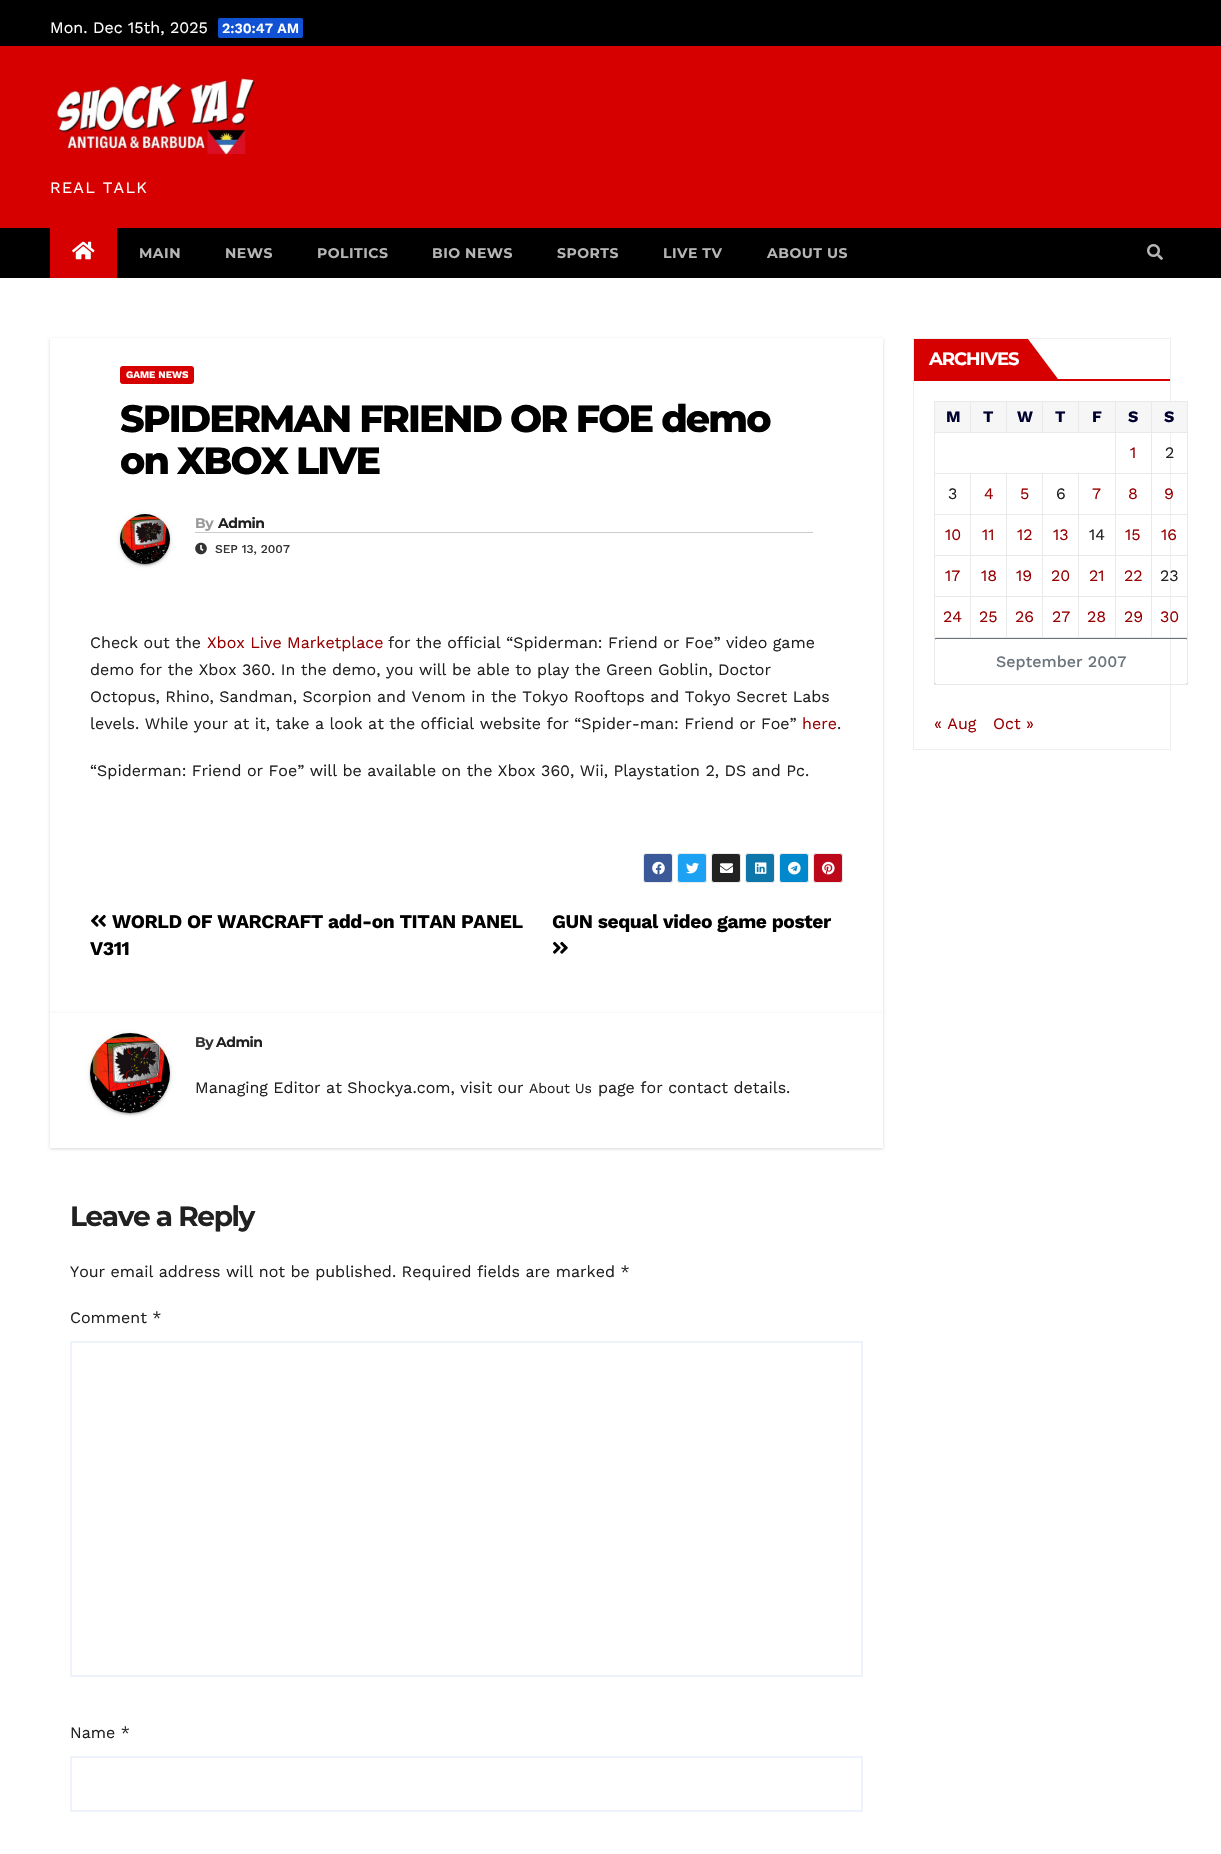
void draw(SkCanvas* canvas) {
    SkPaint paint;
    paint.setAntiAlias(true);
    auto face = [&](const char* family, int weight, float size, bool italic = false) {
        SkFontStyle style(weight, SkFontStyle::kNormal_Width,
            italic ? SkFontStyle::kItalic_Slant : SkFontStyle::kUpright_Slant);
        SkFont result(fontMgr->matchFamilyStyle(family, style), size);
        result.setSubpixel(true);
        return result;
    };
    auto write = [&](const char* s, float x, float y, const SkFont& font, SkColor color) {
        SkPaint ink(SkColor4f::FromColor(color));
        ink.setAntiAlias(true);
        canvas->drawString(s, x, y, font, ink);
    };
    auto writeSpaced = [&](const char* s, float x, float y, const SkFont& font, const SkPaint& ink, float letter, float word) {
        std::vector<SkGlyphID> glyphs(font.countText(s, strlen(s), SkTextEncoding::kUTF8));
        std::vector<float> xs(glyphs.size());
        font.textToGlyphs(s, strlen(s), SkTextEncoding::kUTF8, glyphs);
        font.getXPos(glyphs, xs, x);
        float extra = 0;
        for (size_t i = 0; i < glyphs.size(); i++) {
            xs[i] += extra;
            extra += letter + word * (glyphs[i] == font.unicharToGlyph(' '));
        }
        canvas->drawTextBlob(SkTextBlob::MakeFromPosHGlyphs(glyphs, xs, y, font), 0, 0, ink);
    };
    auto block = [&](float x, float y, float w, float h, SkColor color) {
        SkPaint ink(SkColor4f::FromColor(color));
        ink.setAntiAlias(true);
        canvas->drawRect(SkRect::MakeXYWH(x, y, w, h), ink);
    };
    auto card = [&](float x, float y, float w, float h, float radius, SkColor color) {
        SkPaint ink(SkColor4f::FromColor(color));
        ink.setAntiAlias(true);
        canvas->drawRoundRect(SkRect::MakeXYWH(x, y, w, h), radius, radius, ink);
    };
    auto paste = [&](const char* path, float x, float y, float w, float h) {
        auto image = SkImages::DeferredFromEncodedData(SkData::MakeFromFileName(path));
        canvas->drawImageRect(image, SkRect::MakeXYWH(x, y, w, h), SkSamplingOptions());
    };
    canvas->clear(SK_ColorWHITE);
    block(0, 0, 1221, 46, SK_ColorBLACK);
    auto kFont1 = face("Work Sans", 400, 16);
    write("Mon. Dec 15th, 2025", 50, 33, kFont1, SK_ColorWHITE);
    card(218, 18, 85, 20, 2, SkColorSetRGB(17, 81, 211));
    auto kFont2 = face("Work Sans", 600, 14);
    write("2:30:47 AM", 222, 33, kFont2, SK_ColorWHITE);
    block(0, 46, 1221, 182, SkColorSetRGB(214, 0, 0));
    paste("pic1.png", 56, 77, 201, 80);
    paint.setColor(SK_ColorWHITE);
    writeSpaced("REAL TALK", 50, 193, kFont1, paint, 1.25f, 0);
    block(0, 228, 1221, 50, SK_ColorBLACK);
    block(50, 228, 67, 50, SkColorSetRGB(214, 0, 1));
    paste("pic2.png", 72, 241, 23, 19);
    auto kFont3 = face("Montserrat", 700, 14);
    paint.setColor(SkColorSetRGB(181, 181, 181));
    writeSpaced("MAIN", 139, 258, kFont3, paint, 0.5f, 0);
    writeSpaced("NEWS", 225, 258, kFont3, paint, 0.5f, 0);
    writeSpaced("POLITICS", 317, 258, kFont3, paint, 0.5f, 0);
    writeSpaced("BIO NEWS", 432, 258, kFont3, paint, 0.5f, 0);
    writeSpaced("SPORTS", 557, 258, kFont3, paint, 0.5f, 0);
    writeSpaced("LIVE TV", 663, 258, kFont3, paint, 0.5f, 0);
    writeSpaced("ABOUT US", 767, 258, kFont3, paint, 0.5f, 0);
    paste("pic3.png", 1147, 244, 16, 16);
    canvas->save();
    canvas->clipPath(SkPathBuilder(SkPathFillType::kEvenOdd).moveTo(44, 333).lineTo(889, 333).lineTo(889, 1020).lineTo(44, 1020).close().moveTo(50, 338).lineTo(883, 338).lineTo(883, 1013).lineTo(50, 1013).close().detach(), true);
    paint.setColor(SkColorSetARGB(38, 0, 0, 0));
    paint.setMaskFilter(SkMaskFilter::MakeBlur(kNormal_SkBlurStyle, 1.5f));
    canvas->drawRect(SkRect::MakeXYWH(50, 339, 833, 675), paint);
    paint.setMaskFilter(nullptr);
    canvas->restore();
    card(120, 366, 74, 18, 3, SkColorSetRGB(214, 0, 1));
    auto kFont4 = face("Work Sans", 700, 10);
    write("GAME NEWS", 126, 378, kFont4, SK_ColorWHITE);
    auto kFont5 = face("Montserrat", 800, 38);
    paint.setColor(SK_ColorBLACK);
    writeSpaced("SPIDERMAN FRIEND OR FOE demo", 120, 432, kFont5, paint, -1.9f, 0);
    writeSpaced("on XBOX LIVE", 120, 474, kFont5, paint, -1.9f, 0);
    paint.setColor(SkColorSetARGB(31, 0, 0, 0));
    paint.setMaskFilter(SkMaskFilter::MakeBlur(kNormal_SkBlurStyle, 2.5f));
    canvas->drawRoundRect(SkRect::MakeXYWH(120, 515, 50, 50), 25, 25, paint);
    paint.setMaskFilter(nullptr);
    paint.setColor(SkColorSetARGB(51, 0, 0, 0));
    paint.setMaskFilter(SkMaskFilter::MakeBlur(kNormal_SkBlurStyle, 0.5f));
    canvas->drawRoundRect(SkRect::MakeXYWH(122, 519, 46, 46), 23, 23, paint);
    paint.setMaskFilter(nullptr);
    paint.setColor(SkColorSetARGB(36, 0, 0, 0));
    paint.setMaskFilter(SkMaskFilter::MakeBlur(kNormal_SkBlurStyle, 1));
    canvas->drawRoundRect(SkRect::MakeXYWH(120, 516, 50, 50), 25, 25, paint);
    paint.setMaskFilter(nullptr);
    paste("pic4.png", 120, 514, 50, 50);
    block(195, 532, 618, 1, SkColorSetRGB(204, 204, 204));
    paint.setColor(SkColorSetRGB(153, 153, 153));
    writeSpaced("By", 195, 528, kFont3, paint, -0.5f, 0);
    paint.setColor(SkColorSetRGB(33, 33, 33));
    writeSpaced("Admin", 218, 528, kFont3, paint, -0.5f, 0);
    paste("pic5.png", 195, 542, 12, 13);
    auto kFont6 = face("Work Sans", 500, 12);
    write("SEP 13, 2007", 215, 553, kFont6, SkColorSetRGB(51, 51, 51));
    write("Check out the", 90, 648, kFont1, SkColorSetRGB(33, 33, 33));
    write("Xbox Live Marketplace", 207, 648, kFont1, SkColorSetRGB(150, 0, 1));
    write("for the official “Spiderman: Friend or Foe” video game", 388, 648, kFont1, SkColorSetRGB(33, 33, 33));
    write("demo for the Xbox 360. In the demo, you will be able to play the Green Goblin, Doctor", 90, 675, kFont1, SkColorSetRGB(33, 33, 33));
    write("Octopus, Rhino, Sandman, Scorpion and Venom in the Tokyo Rooftops and Tokyo Secret Labs", 90, 702, kFont1, SkColorSetRGB(33, 33, 33));
    write("levels. While your at it, take a look at the official website for “Spider-man: Friend or Foe”", 90, 729, kFont1, SkColorSetRGB(33, 33, 33));
    write("here", 802, 729, kFont1, SkColorSetRGB(150, 0, 1));
    write(".", 837, 729, kFont1, SkColorSetRGB(33, 33, 33));
    write("“Spiderman: Friend or Foe” will be available on the Xbox 360, Wii, Playstation 2, DS and Pc.", 90, 776, kFont1, SkColorSetRGB(33, 33, 33));
    paint.setColor(SkColorSetRGB(59, 89, 152));
    canvas->drawRoundRect(SkRect::MakeXYWH(643.5f, 853.5f, 29, 29), 2.5f, 2.5f, paint);
    paint.setStyle(SkPaint::kStroke_Style);
    paint.setStrokeWidth(1);
    paint.setColor(SkColorSetRGB(235, 235, 235));
    canvas->drawRoundRect(SkRect::MakeXYWH(643.5f, 853.5f, 29, 29), 2.5f, 2.5f, paint);
    paste("pic6.png", 652, 861, 13, 14);
    paint.setStyle(SkPaint::kFill_Style);
    paint.setColor(SkColorSetRGB(29, 161, 242));
    canvas->drawRoundRect(SkRect::MakeXYWH(677.5f, 853.5f, 29, 29), 2.5f, 2.5f, paint);
    paint.setStyle(SkPaint::kStroke_Style);
    paint.setColor(SkColorSetRGB(235, 235, 235));
    canvas->drawRoundRect(SkRect::MakeXYWH(677.5f, 853.5f, 29, 29), 2.5f, 2.5f, paint);
    paste("pic7.png", 686, 862, 13, 12);
    paint.setStyle(SkPaint::kFill_Style);
    paint.setColor(SkColorSetRGB(34, 34, 34));
    canvas->drawRoundRect(SkRect::MakeXYWH(711.5f, 853.5f, 29, 29), 2.5f, 2.5f, paint);
    paint.setStyle(SkPaint::kStroke_Style);
    paint.setColor(SkColorSetRGB(235, 235, 235));
    canvas->drawRoundRect(SkRect::MakeXYWH(711.5f, 853.5f, 29, 29), 2.5f, 2.5f, paint);
    paste("pic8.png", 720, 863, 13, 10);
    paint.setStyle(SkPaint::kFill_Style);
    paint.setColor(SkColorSetRGB(14, 118, 168));
    canvas->drawRoundRect(SkRect::MakeXYWH(745.5f, 853.5f, 29, 29), 2.5f, 2.5f, paint);
    paint.setStyle(SkPaint::kStroke_Style);
    paint.setColor(SkColorSetRGB(235, 235, 235));
    canvas->drawRoundRect(SkRect::MakeXYWH(745.5f, 853.5f, 29, 29), 2.5f, 2.5f, paint);
    paste("pic9.png", 755, 862, 12, 12);
    paint.setStyle(SkPaint::kFill_Style);
    paint.setColor(SkColorSetRGB(0, 136, 204));
    canvas->drawRoundRect(SkRect::MakeXYWH(779.5f, 853.5f, 29, 29), 2.5f, 2.5f, paint);
    paint.setStyle(SkPaint::kStroke_Style);
    paint.setColor(SkColorSetRGB(235, 235, 235));
    canvas->drawRoundRect(SkRect::MakeXYWH(779.5f, 853.5f, 29, 29), 2.5f, 2.5f, paint);
    paste("pic10.png", 788, 861, 13, 14);
    paint.setStyle(SkPaint::kFill_Style);
    paint.setColor(SkColorSetRGB(189, 8, 28));
    canvas->drawRoundRect(SkRect::MakeXYWH(813.5f, 853.5f, 29, 29), 2.5f, 2.5f, paint);
    paint.setStyle(SkPaint::kStroke_Style);
    paint.setColor(SkColorSetRGB(235, 235, 235));
    canvas->drawRoundRect(SkRect::MakeXYWH(813.5f, 853.5f, 29, 29), 2.5f, 2.5f, paint);
    paste("pic11.png", 822, 861, 13, 14);
    paste("pic12.png", 91, 914, 15, 13);
    auto kFont7 = face("Work Sans", 700, 19.2f);
    paint.setStyle(SkPaint::kFill_Style);
    paint.setColor(SK_ColorBLACK);
    writeSpaced("WORLD OF WARCRAFT add-on TITAN PANEL", 112, 928, kFont7, paint, -0.4f, 0);
    writeSpaced("V311", 90, 955, kFont7, paint, -0.4f, 0);
    writeSpaced("GUN sequal video game poster", 552, 928, kFont7, paint, -0.4f, 0);
    paste("pic13.png", 553, 941, 15, 13);
    paint.setColor(SkColorSetARGB(38, 0, 0, 0));
    paint.setMaskFilter(SkMaskFilter::MakeBlur(kNormal_SkBlurStyle, 1.5f));
    canvas->drawRect(SkRect::MakeXYWH(50, 1014, 833, 135), paint);
    paint.setMaskFilter(nullptr);
    block(50, 1013, 833, 135, SK_ColorWHITE);
    paint.setColor(SkColorSetARGB(31, 0, 0, 0));
    paint.setMaskFilter(SkMaskFilter::MakeBlur(kNormal_SkBlurStyle, 2.5f));
    canvas->drawRoundRect(SkRect::MakeXYWH(90, 1034, 80, 80), 40, 40, paint);
    paint.setMaskFilter(nullptr);
    paint.setColor(SkColorSetARGB(51, 0, 0, 0));
    paint.setMaskFilter(SkMaskFilter::MakeBlur(kNormal_SkBlurStyle, 0.5f));
    canvas->drawRoundRect(SkRect::MakeXYWH(92, 1038, 76, 76), 38, 38, paint);
    paint.setMaskFilter(nullptr);
    paint.setColor(SkColorSetARGB(36, 0, 0, 0));
    paint.setMaskFilter(SkMaskFilter::MakeBlur(kNormal_SkBlurStyle, 1));
    canvas->drawRoundRect(SkRect::MakeXYWH(90, 1035, 80, 80), 40, 40, paint);
    paint.setMaskFilter(nullptr);
    paste("pic14.png", 90, 1033, 80, 80);
    paint.setColor(SkColorSetRGB(51, 51, 51));
    writeSpaced("By", 195, 1047, kFont3, paint, -0.5f, 0);
    paint.setColor(SkColorSetRGB(33, 33, 33));
    writeSpaced("Admin", 216, 1047, kFont3, paint, -0.5f, 0);
    write("Managing Editor at Shockya.com, visit our", 195, 1093, kFont1, SkColorSetRGB(33, 33, 33));
    auto kFont8 = face("Work Sans", 400, 14);
    write("About Us", 529, 1093, kFont8, SkColorSetRGB(33, 33, 33));
    write("page for contact details.", 598, 1093, kFont1, SkColorSetRGB(33, 33, 33));
    auto kFont9 = face("Montserrat", 700, 28);
    writeSpaced("Leave a Reply", 70, 1226, kFont9, paint, -1.4f, 0);
    write("Your email address will not be published. Required fields are marked *", 70, 1277, kFont1, SkColorSetRGB(33, 33, 33));
    write("Comment *", 70, 1323, kFont1, SkColorSetRGB(33, 33, 33));
    paint.setStyle(SkPaint::kStroke_Style);
    paint.setStrokeWidth(2);
    paint.setColor(SkColorSetRGB(238, 243, 251));
    canvas->drawRect(SkRect::MakeXYWH(71, 1342, 791, 334), paint);
    write("Name *", 70, 1738, kFont1, SkColorSetRGB(33, 33, 33));
    canvas->drawRect(SkRect::MakeXYWH(71, 1757, 791, 54), paint);
    paint.setStrokeWidth(1);
    paint.setColor(SkColorSetRGB(238, 238, 238));
    canvas->drawRect(SkRect::MakeXYWH(913.5f, 338.5f, 257, 411), paint);
    block(914, 379, 256, 2, SkColorSetRGB(214, 0, 1));
    block(914, 339, 114, 40, SkColorSetRGB(214, 0, 1));
    auto kFont10 = face("Montserrat", 700, 18);
    paint.setStyle(SkPaint::kFill_Style);
    paint.setColor(SK_ColorWHITE);
    writeSpaced("ARCHIVES", 929, 365, kFont10, paint, -1, 0);
    paint.setColor(SkColorSetRGB(214, 0, 1));
    canvas->drawPath(SkPathBuilder().moveTo(1028, 379).lineTo(1028, 339).lineTo(1058, 379).close().detach(), paint);
    block(934, 401, 254, 1, SkColorSetRGB(233, 233, 233));
    paint.setStyle(SkPaint::kStroke_Style);
    paint.setColor(SkColorSetRGB(108, 117, 125));
    canvas->drawRoundRect(SkRect::MakeXYWH(934.5f, 638.5f, 253, 46), 1.5f, 1.5f, paint);
    block(1187, 401, 1, 284, SkColorSetRGB(233, 233, 233));
    block(934, 684, 254, 1, SkColorSetRGB(233, 233, 233));
    block(934, 401, 1, 284, SkColorSetRGB(233, 233, 233));
    block(935, 402, 35, 30, SkColorSetRGB(246, 246, 246));
    auto kFont11 = face("Work Sans", 700, 16);
    write("M", 946, 422, kFont11, SkColorSetRGB(1, 1, 47));
    block(971, 402, 35, 30, SkColorSetRGB(246, 246, 246));
    block(1151, 432, 37, 1, SkColorSetRGB(233, 233, 233));
    block(1151, 473, 37, 1, SkColorSetRGB(233, 233, 233));
    block(1151, 514, 37, 1, SkColorSetRGB(233, 233, 233));
    block(1151, 555, 37, 1, SkColorSetRGB(233, 233, 233));
    block(1151, 596, 37, 1, SkColorSetRGB(233, 233, 233));
    block(1151, 637, 37, 1, SkColorSetRGB(233, 233, 233));
    block(1151, 596, 1, 42, SkColorSetRGB(233, 233, 233));
    block(1115, 596, 37, 1, SkColorSetRGB(233, 233, 233));
    block(1151, 555, 1, 42, SkColorSetRGB(233, 233, 233));
    block(1115, 555, 37, 1, SkColorSetRGB(233, 233, 233));
    block(1151, 514, 1, 42, SkColorSetRGB(233, 233, 233));
    block(1115, 514, 37, 1, SkColorSetRGB(233, 233, 233));
    block(1151, 473, 1, 42, SkColorSetRGB(233, 233, 233));
    block(1115, 473, 37, 1, SkColorSetRGB(233, 233, 233));
    block(1151, 432, 1, 42, SkColorSetRGB(233, 233, 233));
    block(1115, 432, 37, 1, SkColorSetRGB(233, 233, 233));
    block(1115, 637, 37, 1, SkColorSetRGB(233, 233, 233));
    block(1115, 596, 1, 42, SkColorSetRGB(233, 233, 233));
    block(1078, 596, 38, 1, SkColorSetRGB(233, 233, 233));
    block(1115, 555, 1, 42, SkColorSetRGB(233, 233, 233));
    block(1078, 555, 38, 1, SkColorSetRGB(233, 233, 233));
    block(1115, 514, 1, 42, SkColorSetRGB(233, 233, 233));
    block(1078, 514, 38, 1, SkColorSetRGB(233, 233, 233));
    block(1115, 473, 1, 42, SkColorSetRGB(233, 233, 233));
    block(1078, 473, 38, 1, SkColorSetRGB(233, 233, 233));
    block(1115, 432, 1, 42, SkColorSetRGB(233, 233, 233));
    block(934, 432, 182, 1, SkColorSetRGB(233, 233, 233));
    block(970, 401, 1, 32, SkColorSetRGB(233, 233, 233));
    write("T", 983, 422, kFont11, SkColorSetRGB(1, 1, 47));
    block(1007, 402, 35, 30, SkColorSetRGB(246, 246, 246));
    block(1006, 401, 1, 32, SkColorSetRGB(233, 233, 233));
    write("W", 1017, 422, kFont11, SkColorSetRGB(1, 1, 47));
    block(1043, 402, 35, 30, SkColorSetRGB(246, 246, 246));
    block(1042, 401, 1, 32, SkColorSetRGB(233, 233, 233));
    write("T", 1055, 422, kFont11, SkColorSetRGB(1, 1, 47));
    block(1079, 402, 36, 30, SkColorSetRGB(246, 246, 246));
    block(1078, 401, 1, 32, SkColorSetRGB(233, 233, 233));
    write("F", 1092, 422, kFont11, SkColorSetRGB(1, 1, 47));
    block(1116, 402, 35, 30, SkColorSetRGB(246, 246, 246));
    block(1115, 401, 1, 32, SkColorSetRGB(233, 233, 233));
    write("S", 1128, 422, kFont11, SkColorSetRGB(1, 1, 47));
    block(1152, 402, 35, 30, SkColorSetRGB(246, 246, 246));
    block(1151, 401, 1, 32, SkColorSetRGB(233, 233, 233));
    write("S", 1164, 422, kFont11, SkColorSetRGB(1, 1, 47));
    write("1", 1130, 458, kFont1, SkColorSetRGB(150, 0, 1));
    write("2", 1165, 458, kFont1, SkColorSetRGB(33, 33, 33));
    block(1078, 637, 38, 1, SkColorSetRGB(233, 233, 233));
    block(1078, 596, 1, 42, SkColorSetRGB(233, 233, 233));
    block(1042, 596, 37, 1, SkColorSetRGB(233, 233, 233));
    block(1078, 555, 1, 42, SkColorSetRGB(233, 233, 233));
    block(1042, 555, 37, 1, SkColorSetRGB(233, 233, 233));
    block(1078, 514, 1, 42, SkColorSetRGB(233, 233, 233));
    block(1042, 514, 37, 1, SkColorSetRGB(233, 233, 233));
    block(1078, 473, 1, 42, SkColorSetRGB(233, 233, 233));
    block(1042, 473, 37, 1, SkColorSetRGB(233, 233, 233));
    block(1042, 637, 37, 1, SkColorSetRGB(233, 233, 233));
    block(1042, 596, 1, 42, SkColorSetRGB(233, 233, 233));
    block(1006, 596, 37, 1, SkColorSetRGB(233, 233, 233));
    block(1042, 555, 1, 42, SkColorSetRGB(233, 233, 233));
    block(1006, 555, 37, 1, SkColorSetRGB(233, 233, 233));
    block(1042, 514, 1, 42, SkColorSetRGB(233, 233, 233));
    block(1006, 514, 37, 1, SkColorSetRGB(233, 233, 233));
    block(1042, 473, 1, 42, SkColorSetRGB(233, 233, 233));
    block(1006, 473, 37, 1, SkColorSetRGB(233, 233, 233));
    block(1006, 637, 37, 1, SkColorSetRGB(233, 233, 233));
    block(1006, 596, 1, 42, SkColorSetRGB(233, 233, 233));
    block(970, 596, 37, 1, SkColorSetRGB(233, 233, 233));
    block(1006, 555, 1, 42, SkColorSetRGB(233, 233, 233));
    block(970, 555, 37, 1, SkColorSetRGB(233, 233, 233));
    block(1006, 514, 1, 42, SkColorSetRGB(233, 233, 233));
    block(970, 514, 37, 1, SkColorSetRGB(233, 233, 233));
    block(1006, 473, 1, 42, SkColorSetRGB(233, 233, 233));
    block(970, 473, 37, 1, SkColorSetRGB(233, 233, 233));
    block(970, 637, 37, 1, SkColorSetRGB(233, 233, 233));
    block(970, 596, 1, 42, SkColorSetRGB(233, 233, 233));
    block(934, 596, 37, 1, SkColorSetRGB(233, 233, 233));
    block(970, 555, 1, 42, SkColorSetRGB(233, 233, 233));
    block(934, 555, 37, 1, SkColorSetRGB(233, 233, 233));
    block(970, 514, 1, 42, SkColorSetRGB(233, 233, 233));
    block(934, 514, 37, 1, SkColorSetRGB(233, 233, 233));
    block(970, 473, 1, 42, SkColorSetRGB(233, 233, 233));
    block(934, 473, 37, 1, SkColorSetRGB(233, 233, 233));
    write("3", 948, 499, kFont1, SkColorSetRGB(33, 33, 33));
    write("4", 984, 499, kFont1, SkColorSetRGB(150, 0, 1));
    write("5", 1020, 499, kFont1, SkColorSetRGB(150, 0, 1));
    write("6", 1056, 499, kFont1, SkColorSetRGB(33, 33, 33));
    write("7", 1092, 499, kFont1, SkColorSetRGB(150, 0, 1));
    write("8", 1128, 499, kFont1, SkColorSetRGB(150, 0, 1));
    write("9", 1164, 499, kFont1, SkColorSetRGB(150, 0, 1));
    write("10", 945, 540, kFont1, SkColorSetRGB(150, 0, 1));
    write("11", 982, 540, kFont1, SkColorSetRGB(150, 0, 1));
    write("12", 1017, 540, kFont1, SkColorSetRGB(150, 0, 1));
    write("13", 1053, 540, kFont1, SkColorSetRGB(150, 0, 1));
    write("14", 1089, 540, kFont1, SkColorSetRGB(33, 33, 33));
    write("15", 1125, 540, kFont1, SkColorSetRGB(150, 0, 1));
    write("16", 1161, 540, kFont1, SkColorSetRGB(150, 0, 1));
    write("17", 945, 581, kFont1, SkColorSetRGB(150, 0, 1));
    write("18", 981, 581, kFont1, SkColorSetRGB(150, 0, 1));
    write("19", 1016, 581, kFont1, SkColorSetRGB(150, 0, 1));
    write("20", 1051, 581, kFont1, SkColorSetRGB(150, 0, 1));
    write("21", 1089, 581, kFont1, SkColorSetRGB(150, 0, 1));
    write("22", 1124, 581, kFont1, SkColorSetRGB(150, 0, 1));
    write("23", 1160, 581, kFont1, SkColorSetRGB(33, 33, 33));
    block(934, 637, 37, 1, SkColorSetRGB(233, 233, 233));
    write("24", 943, 622, kFont1, SkColorSetRGB(150, 0, 1));
    write("25", 979, 622, kFont1, SkColorSetRGB(150, 0, 1));
    write("26", 1015, 622, kFont1, SkColorSetRGB(150, 0, 1));
    write("27", 1052, 622, kFont1, SkColorSetRGB(150, 0, 1));
    write("28", 1087, 622, kFont1, SkColorSetRGB(150, 0, 1));
    write("29", 1124, 622, kFont1, SkColorSetRGB(150, 0, 1));
    write("30", 1160, 622, kFont1, SkColorSetRGB(150, 0, 1));
    auto kFont12 = face("Work Sans", 500, 16);
    write("September 2007", 996, 667, kFont12, SkColorSetRGB(108, 117, 125));
    write("« Aug", 934, 729, kFont1, SkColorSetRGB(150, 0, 1));
    write("Oct »", 993, 729, kFont1, SkColorSetRGB(150, 0, 1));
}
